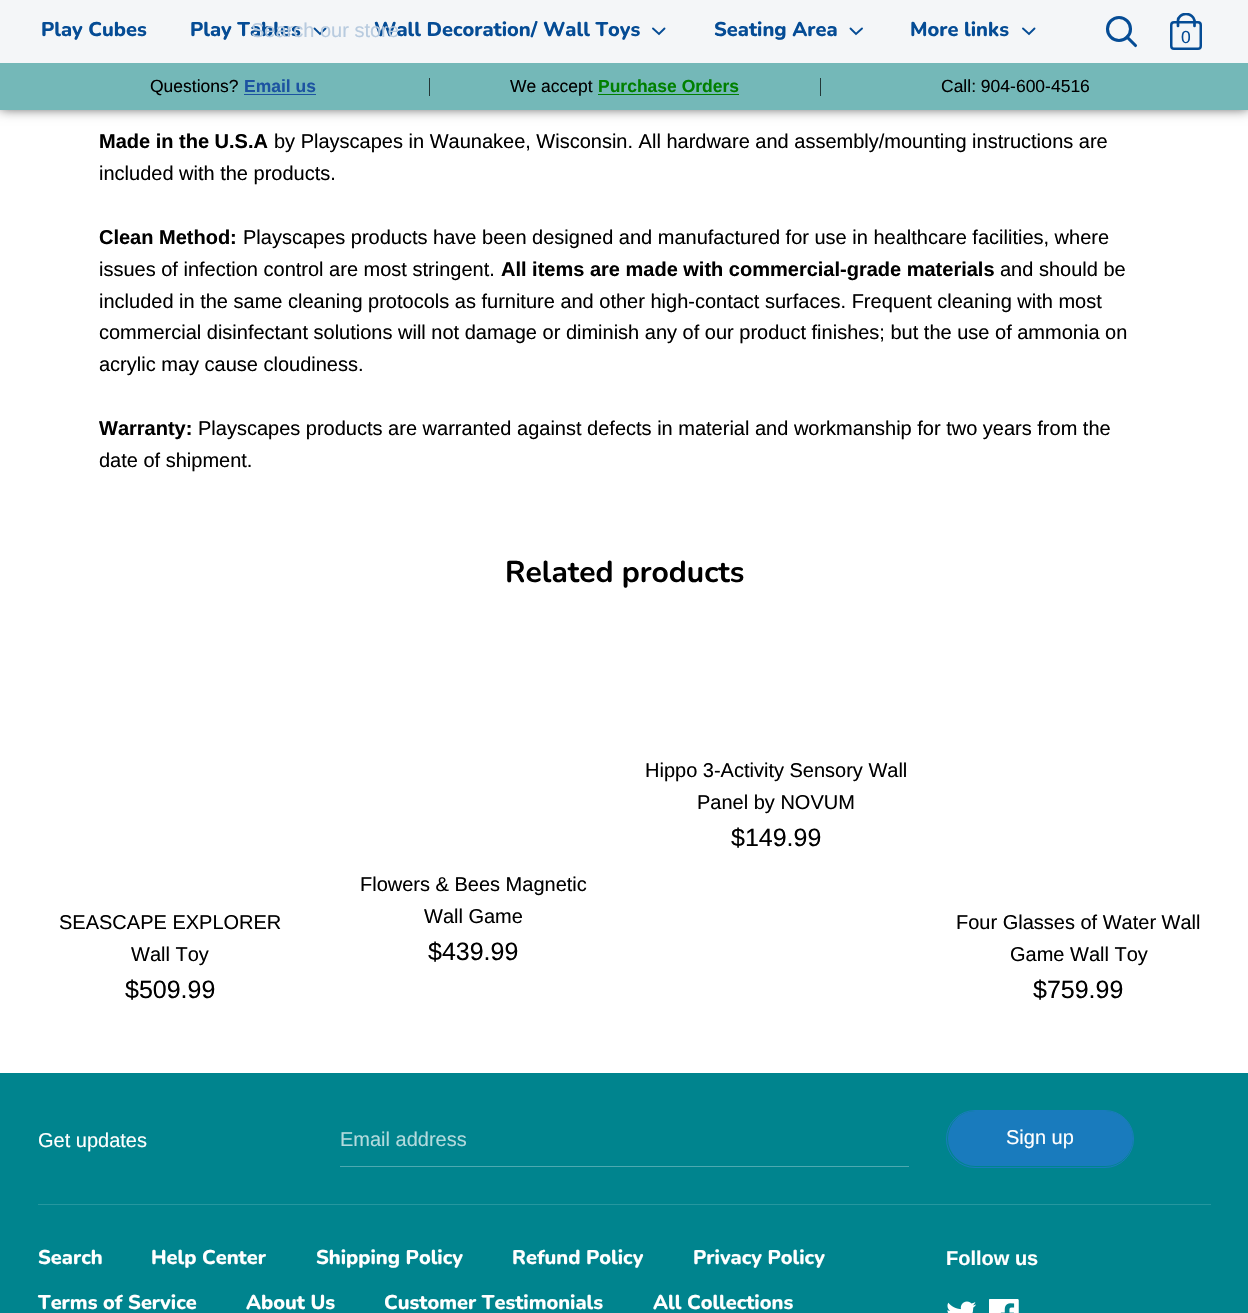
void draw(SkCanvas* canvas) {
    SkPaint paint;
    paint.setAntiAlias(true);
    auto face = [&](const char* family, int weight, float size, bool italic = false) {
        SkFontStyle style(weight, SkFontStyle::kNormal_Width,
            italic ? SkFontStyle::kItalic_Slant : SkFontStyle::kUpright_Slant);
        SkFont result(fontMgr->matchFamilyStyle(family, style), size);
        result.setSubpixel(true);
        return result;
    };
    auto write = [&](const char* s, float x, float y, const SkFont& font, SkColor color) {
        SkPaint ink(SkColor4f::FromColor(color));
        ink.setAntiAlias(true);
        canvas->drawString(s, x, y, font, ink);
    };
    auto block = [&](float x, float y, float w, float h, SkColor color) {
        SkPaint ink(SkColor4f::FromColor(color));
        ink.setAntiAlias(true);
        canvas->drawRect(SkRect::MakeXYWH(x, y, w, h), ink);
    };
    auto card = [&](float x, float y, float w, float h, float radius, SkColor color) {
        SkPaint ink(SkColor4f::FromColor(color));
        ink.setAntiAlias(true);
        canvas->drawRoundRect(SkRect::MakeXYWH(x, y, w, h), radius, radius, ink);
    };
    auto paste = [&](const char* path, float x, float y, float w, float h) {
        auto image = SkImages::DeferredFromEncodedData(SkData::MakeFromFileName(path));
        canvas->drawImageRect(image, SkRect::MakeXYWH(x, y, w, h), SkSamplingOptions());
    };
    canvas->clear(SK_ColorWHITE);
    paint.setColor(SkColorSetARGB(191, 0, 0, 0));
    paint.setMaskFilter(SkMaskFilter::MakeBlur(kNormal_SkBlurStyle, 6));
    canvas->drawRect(SkRect::MakeXYWH(0, -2, 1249, 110), paint);
    paint.setMaskFilter(nullptr);
    block(0, 0, 1248, 63, SkColorSetRGB(244, 246, 248));
    auto kFont1 = face("Nunito", 800, 20);
    write("Play Cubes", 41, 36, kFont1, SkColorSetRGB(5, 76, 149));
    write("Play Tables", 190, 36, kFont1, SkColorSetRGB(5, 76, 149));
    paint.setStyle(SkPaint::kStroke_Style);
    paint.setStrokeWidth(1.9f);
    paint.setStrokeCap(SkPaint::kRound_Cap);
    paint.setColor(SkColorSetRGB(5, 76, 149));
    canvas->drawPath(SkPathBuilder().moveTo(314.5f, 28.5f).lineTo(320, 34).lineTo(325.5f, 28.5f).detach(), paint);
    write("Wall Decoration/ Wall Toys", 374, 36, kFont1, SkColorSetRGB(5, 76, 149));
    canvas->drawPath(SkPathBuilder().moveTo(653, 28.5f).lineTo(659, 34).lineTo(664.5f, 28.5f).detach(), paint);
    write("Seating Area", 714, 36, kFont1, SkColorSetRGB(5, 76, 149));
    canvas->drawPath(SkPathBuilder().moveTo(850.5f, 28.5f).lineTo(856, 34).lineTo(862, 28.5f).detach(), paint);
    write("More links", 910, 36, kFont1, SkColorSetRGB(5, 76, 149));
    canvas->drawPath(SkPathBuilder().moveTo(1023, 28.5f).lineTo(1029, 34).lineTo(1034.5f, 28.5f).detach(), paint);
    auto kFont2 = face("Arimo", 400, 20);
    write("Search our store", 251, 37, kFont2, SkColorSetRGB(184, 203, 223));
    paint.setStrokeWidth(3.1f);
    paint.setStrokeCap(SkPaint::kButt_Cap);
    canvas->drawCircle(1119, 29, 11.5f, paint);
    paint.setStrokeCap(SkPaint::kRound_Cap);
    canvas->drawPath(SkPathBuilder().moveTo(1135.5f, 45.5f).lineTo(1127, 37).detach(), paint);
    paint.setStrokeWidth(2.5f);
    paint.setStrokeCap(SkPaint::kButt_Cap);
    canvas->drawRoundRect(SkRect::MakeXYWH(1171.25f, 22.25f, 29.5f, 26.5f), 2.75f, 2.75f, paint);
    canvas->save();
    canvas->clipRect(SkRect::MakeXYWH(1168, 13, 37, 37));
    paint.setStrokeWidth(2.7f);
    paint.setStrokeCap(SkPaint::kRound_Cap);
    canvas->drawPath(SkPathBuilder().moveTo(1178, 26).lineTo(1178, 20.5f).cubicTo(1178, 17, 1181.5f, 14, 1186, 14).cubicTo(1190.5f, 14, 1194, 17, 1194.5f, 20.5f).lineTo(1194.5f, 26).detach(), paint);
    canvas->restore();
    auto kFont3 = face("Arimo", 400, 17.5f);
    write("0", 1181, 43, kFont3, SkColorSetRGB(5, 76, 149));
    block(0, 63, 1248, 47, SkColorSetRGB(116, 184, 184));
    write("Questions?", 150, 92, kFont3, SK_ColorBLACK);
    auto kFont4 = face("Arimo", 700, 17.5f);
    write("Email us", 244, 92, kFont4, SkColorSetRGB(28, 83, 161));
    block(244, 94, 72, 1, SkColorSetRGB(28, 83, 161));
    block(429, 78, 1, 18, SkColorSetRGB(35, 55, 55));
    write("We accept", 510, 92, kFont3, SK_ColorBLACK);
    write("Purchase Orders", 598, 92, kFont4, SkColorSetRGB(0, 128, 0));
    block(598, 94, 141, 1, SkColorSetRGB(0, 128, 0));
    block(820, 78, 1, 18, SkColorSetRGB(35, 55, 55));
    write("Call: 904-600-4516", 941, 92, kFont3, SK_ColorBLACK);
    auto kFont5 = face("Arimo", 700, 20);
    write("Made in the U.S.A", 99, 148, kFont5, SK_ColorBLACK);
    write("by Playscapes in Waunakee, Wisconsin. All hardware and assembly/mounting instructions are", 274, 148, kFont2, SK_ColorBLACK);
    write("included with the products.", 99, 180, kFont2, SK_ColorBLACK);
    write("Clean Method:", 99, 244, kFont5, SK_ColorBLACK);
    write("Playscapes products have been designed and manufactured for use in healthcare facilities, where", 243, 244, kFont2, SK_ColorBLACK);
    write("issues of infection control are most stringent.", 99, 276, kFont2, SK_ColorBLACK);
    write("All items are made with commercial-grade materials", 501, 276, kFont5, SK_ColorBLACK);
    write("and should be", 1000, 276, kFont2, SK_ColorBLACK);
    write("included in the same cleaning protocols as furniture and other high-contact surfaces. Frequent cleaning with most", 99, 308, kFont2, SK_ColorBLACK);
    write("commercial disinfectant solutions will not damage or diminish any of our product finishes; but the use of ammonia on", 99, 339, kFont2, SK_ColorBLACK);
    write("acrylic may cause cloudiness.", 99, 371, kFont2, SK_ColorBLACK);
    write("Warranty:", 99, 435, kFont5, SK_ColorBLACK);
    write("Playscapes products are warranted against defects in material and workmanship for two years from the", 198, 435, kFont2, SK_ColorBLACK);
    write("date of shipment.", 99, 467, kFont2, SK_ColorBLACK);
    auto kFont6 = face("Nunito", 700, 30);
    write("Related products", 505, 582, kFont6, SK_ColorBLACK);
    write("Hippo 3-Activity Sensory Wall", 645, 777, kFont2, SK_ColorBLACK);
    write("Panel by NOVUM", 697, 809, kFont2, SK_ColorBLACK);
    auto kFont7 = face("Arimo", 400, 25);
    write("$149.99", 731, 846, kFont7, SK_ColorBLACK);
    write("SEASCAPE EXPLORER", 59, 929, kFont2, SK_ColorBLACK);
    write("Wall Toy", 131, 961, kFont2, SK_ColorBLACK);
    write("$509.99", 125, 998, kFont7, SK_ColorBLACK);
    write("Flowers & Bees Magnetic", 360, 891, kFont2, SK_ColorBLACK);
    write("Wall Game", 424, 923, kFont2, SK_ColorBLACK);
    write("$439.99", 428, 960, kFont7, SK_ColorBLACK);
    write("Four Glasses of Water Wall", 956, 929, kFont2, SK_ColorBLACK);
    write("Game Wall Toy", 1010, 961, kFont2, SK_ColorBLACK);
    write("$759.99", 1033, 998, kFont7, SK_ColorBLACK);
    block(0, 1073, 1248, 240, SkColorSetRGB(0, 132, 142));
    write("Get updates", 38, 1147, kFont2, SK_ColorWHITE);
    block(340, 1166, 569, 1, SkColorSetRGB(77, 169, 176));
    write("Email address", 340, 1146, kFont2, SkColorSetRGB(179, 218, 221));
    paint.setStrokeWidth(1);
    paint.setStrokeCap(SkPaint::kButt_Cap);
    paint.setColor(SkColorSetRGB(25, 123, 189));
    canvas->drawRoundRect(SkRect::MakeXYWH(946.5f, 1110.5f, 187, 57), 28.5f, 28.5f, paint);
    card(948, 1111, 185, 55, 27.5f, SkColorSetRGB(25, 123, 189));
    write("Sign up", 1006, 1144, kFont2, SK_ColorWHITE);
    block(38, 1204, 1173, 1, SkColorSetRGB(38, 151, 159));
    write("Search", 38, 1264, kFont1, SK_ColorWHITE);
    write("Help Center", 151, 1264, kFont1, SK_ColorWHITE);
    write("Shipping Policy", 316, 1264, kFont1, SK_ColorWHITE);
    write("Refund Policy", 512, 1264, kFont1, SK_ColorWHITE);
    write("Privacy Policy", 693, 1264, kFont1, SK_ColorWHITE);
    write("Terms of Service", 38, 1309, kFont1, SK_ColorWHITE);
    write("About Us", 246, 1309, kFont1, SK_ColorWHITE);
    write("Customer Testimonials", 384, 1309, kFont1, SK_ColorWHITE);
    write("All Collections", 653, 1309, kFont1, SK_ColorWHITE);
    write("Follow us", 946, 1265, kFont5, SK_ColorWHITE);
    paste("pic1.png", 947, 1301, 29, 12);
    paste("pic2.png", 989, 1299, 30, 14);
}
